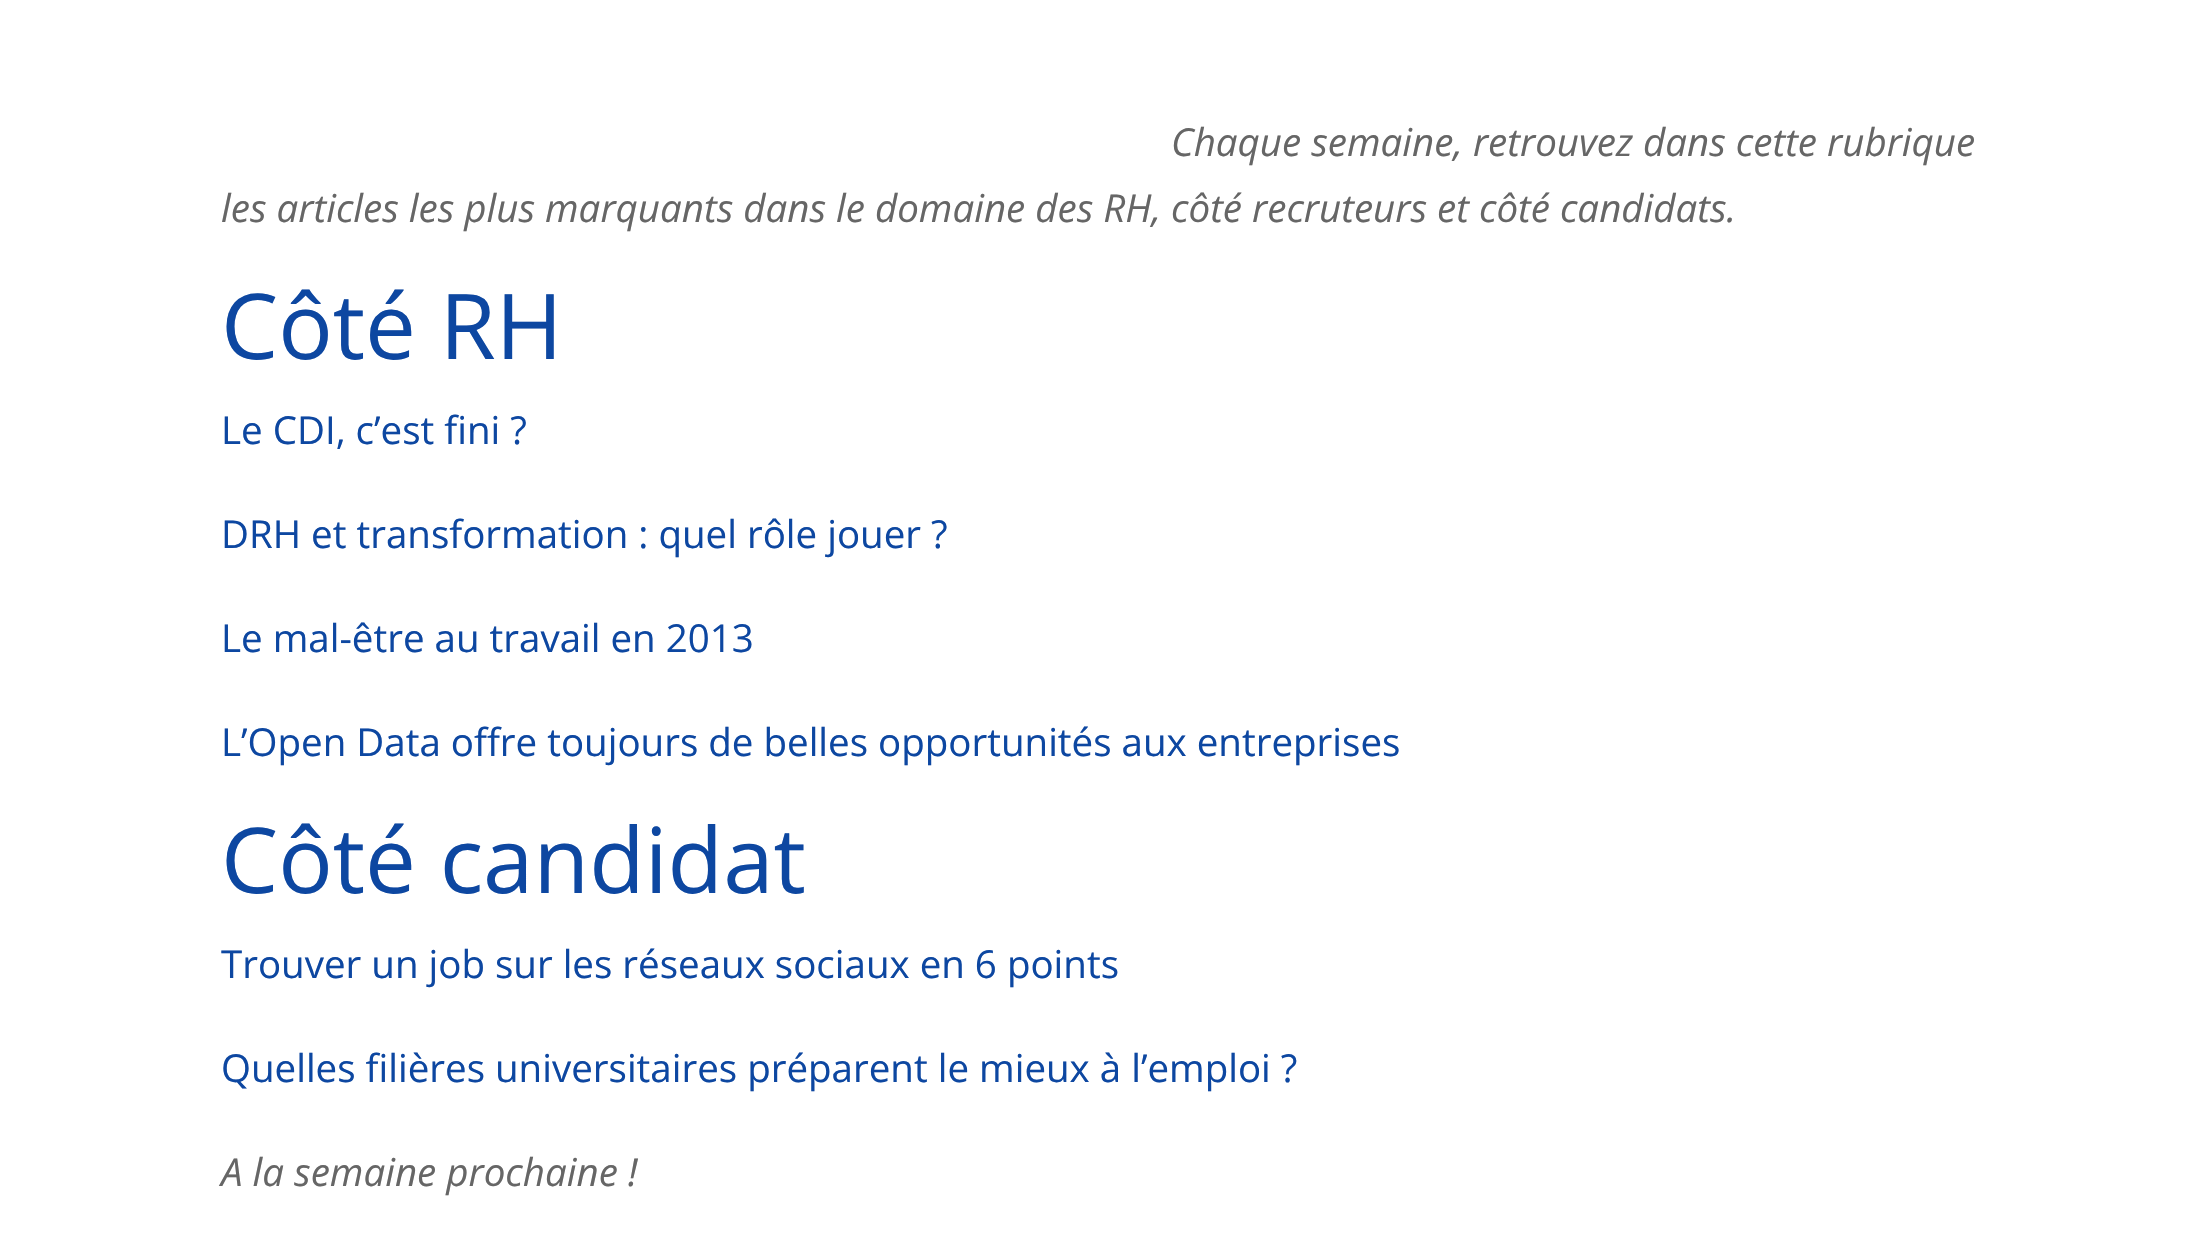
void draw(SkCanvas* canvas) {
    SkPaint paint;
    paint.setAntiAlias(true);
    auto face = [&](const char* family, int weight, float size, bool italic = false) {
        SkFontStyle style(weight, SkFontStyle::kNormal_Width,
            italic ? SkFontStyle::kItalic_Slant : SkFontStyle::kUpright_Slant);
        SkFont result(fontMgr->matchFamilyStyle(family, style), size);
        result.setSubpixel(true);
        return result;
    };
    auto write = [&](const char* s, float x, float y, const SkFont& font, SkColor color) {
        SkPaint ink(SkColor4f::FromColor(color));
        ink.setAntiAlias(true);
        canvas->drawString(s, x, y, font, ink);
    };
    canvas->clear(SK_ColorWHITE);
    auto kFont1 = face("Open Sans", 400, 38.5f, true);
    write("Chaque semaine, retrouvez dans cette rubrique", 1171, 156, kFont1, SkColorSetRGB(102, 102, 102));
    write("les articles les plus marquants dans le domaine des RH, côté recruteurs et côté candidats.", 221, 222, kFont1, SkColorSetRGB(102, 102, 102));
    auto kFont2 = face("Open Sans", 400, 90.75f);
    write("Côté RH", 221, 359, kFont2, SkColorSetRGB(13, 71, 161));
    auto kFont3 = face("Open Sans", 400, 38.5f);
    write("Le CDI, c’est fini ?", 221, 444, kFont3, SkColorSetRGB(13, 71, 161));
    write("DRH et transformation : quel rôle jouer ?", 221, 548, kFont3, SkColorSetRGB(13, 71, 161));
    write("Le mal-être au travail en 2013", 221, 652, kFont3, SkColorSetRGB(13, 71, 161));
    write("L’Open Data offre toujours de belles opportunités aux entreprises", 221, 756, kFont3, SkColorSetRGB(13, 71, 161));
    write("Côté candidat", 221, 893, kFont2, SkColorSetRGB(13, 71, 161));
    write("Trouver un job sur les réseaux sociaux en 6 points", 221, 978, kFont3, SkColorSetRGB(13, 71, 161));
    write("Quelles filières universitaires préparent le mieux à l’emploi ?", 221, 1082, kFont3, SkColorSetRGB(13, 71, 161));
    write("A la semaine prochaine !", 221, 1186, kFont1, SkColorSetRGB(102, 102, 102));
}
